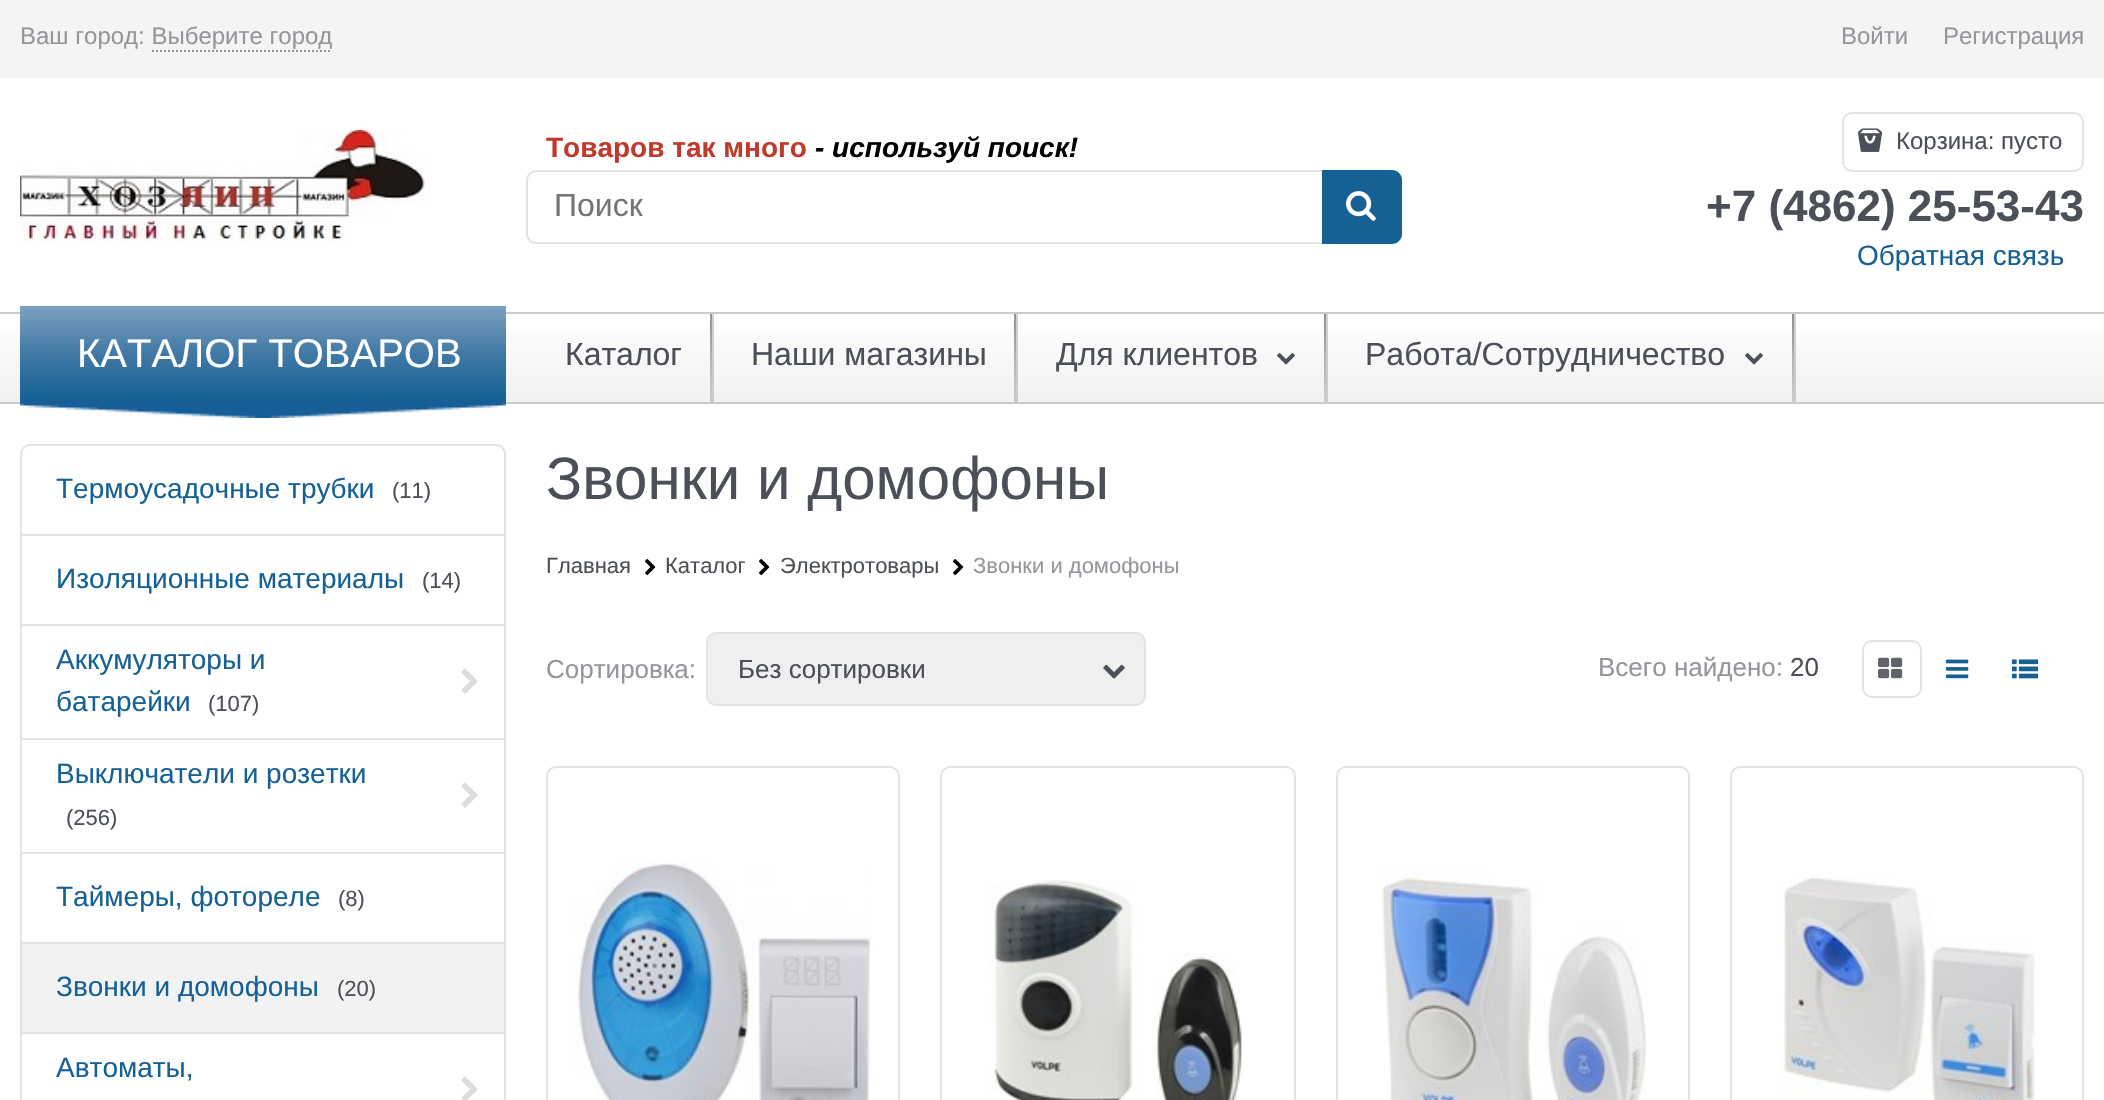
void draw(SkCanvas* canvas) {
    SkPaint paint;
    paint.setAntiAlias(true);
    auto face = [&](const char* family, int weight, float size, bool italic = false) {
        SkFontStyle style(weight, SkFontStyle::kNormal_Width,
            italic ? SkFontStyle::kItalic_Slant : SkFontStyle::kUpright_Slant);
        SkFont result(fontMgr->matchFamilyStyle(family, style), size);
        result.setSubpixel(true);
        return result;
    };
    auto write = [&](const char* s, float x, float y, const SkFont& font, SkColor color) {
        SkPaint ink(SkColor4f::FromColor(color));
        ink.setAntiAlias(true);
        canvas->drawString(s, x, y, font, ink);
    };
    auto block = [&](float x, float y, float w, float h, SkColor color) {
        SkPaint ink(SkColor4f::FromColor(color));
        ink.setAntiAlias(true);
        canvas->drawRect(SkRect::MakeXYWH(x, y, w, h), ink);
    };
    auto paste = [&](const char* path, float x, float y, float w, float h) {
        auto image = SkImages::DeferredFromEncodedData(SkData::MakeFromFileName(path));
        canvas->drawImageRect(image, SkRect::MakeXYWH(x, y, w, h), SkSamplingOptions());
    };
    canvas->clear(SK_ColorWHITE);
    block(0, 0, 2104, 78, SkColorSetRGB(244, 244, 244));
    auto kFont1 = face("Liberation Sans", 400, 24);
    write("Ваш город: Выберите город", 20, 44, kFont1, SkColorSetRGB(148, 150, 155));
    paint.setStyle(SkPaint::kStroke_Style);
    paint.setStrokeWidth(2);
    paint.setColor(SkColorSetRGB(148, 150, 155));
    paint.setPathEffect(SkDashPathEffect::Make({{2, 2}}, 0));
    canvas->drawPath(SkPathBuilder().moveTo(152, 51).lineTo(332, 51).detach(), paint);
    paint.setPathEffect(nullptr);
    write("Войти", 1841, 44, kFont1, SkColorSetRGB(148, 150, 155));
    write("Регистрация", 1943, 44, kFont1, SkColorSetRGB(148, 150, 155));
    paste("pic1.png", 20, 130, 405, 116);
    auto kFont2 = face("Liberation Sans", 700, 28);
    write("Товаров так много", 546, 157, kFont2, SkColorSetRGB(192, 57, 43));
    auto kFont3 = face("Liberation Sans", 700, 28, true);
    write("- используй поиск!", 815, 157, kFont3, SK_ColorBLACK);
    paint.setColor(SkColorSetRGB(226, 227, 228));
    canvas->drawRoundRect(SkRect::MakeXYWH(527, 171, 874, 72), 9, 9, paint);
    auto kFont4 = face("Liberation Sans", 400, 32);
    write("Поиск", 554, 216, kFont4, SkColorSetRGB(117, 117, 117));
    paint.setStyle(SkPaint::kFill_Style);
    paint.setColor(SkColorSetRGB(21, 97, 150));
    canvas->drawPath(SkPathBuilder().moveTo(1322, 170).lineTo(1392, 170).cubicTo(1397.5f, 170, 1402, 174.5f, 1402, 180).lineTo(1402, 234).cubicTo(1402, 239.5f, 1397.5f, 244, 1392, 244).lineTo(1322, 244).close().detach(), paint);
    paste("pic2.png", 1346, 191, 30, 30);
    paint.setStyle(SkPaint::kStroke_Style);
    paint.setColor(SkColorSetRGB(226, 227, 228));
    canvas->drawRoundRect(SkRect::MakeXYWH(1843, 113, 240, 58), 9, 9, paint);
    paste("pic3.png", 1858, 128, 24, 24);
    write("Корзина: пусто", 1896, 149, kFont1, SkColorSetRGB(75, 79, 88));
    auto kFont5 = face("Liberation Sans", 700, 44);
    write("+7 (4862) 25-53-43", 1706, 221, kFont5, SkColorSetRGB(75, 79, 88));
    auto kFont6 = face("Liberation Sans", 400, 28);
    write("Обратная связь", 1857, 265, kFont6, SkColorSetRGB(21, 97, 150));
    paint.setStyle(SkPaint::kFill_Style);
    {
        const SkColor colors[] = {SK_ColorWHITE, SkColorSetRGB(248, 248, 248), SkColorSetRGB(241, 241, 241)};
        const float stops[] = {0, 0.5f, 1};
        const SkPoint ends[] = {{1052, 314}, {1052, 402}};
        paint.setShader(SkGradientShader::MakeLinear(ends, colors, stops, 3, SkTileMode::kClamp));
        paint.setAlpha(255);
    }
    canvas->drawRect(SkRect::MakeXYWH(0, 330, 2104, 72), paint);
    paint.setStyle(SkPaint::kStroke_Style);
    paint.setShader(nullptr);
    paint.setColor(SkColorSetRGB(202, 202, 202));
    canvas->drawRect(SkRect::MakeXYWH(-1, 313, 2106, 90), paint);
    paint.setStyle(SkPaint::kFill_Style);
    {
        const SkColor colors[] = {SkColorSetRGB(124, 161, 191), SkColorSetRGB(66, 121, 166), SkColorSetRGB(21, 97, 150)};
        const float stops[] = {0, 0.5f, 1};
        const SkPoint ends[] = {{263, 306}, {263, 400}};
        paint.setShader(SkGradientShader::MakeLinear(ends, colors, stops, 3, SkTileMode::kClamp));
        paint.setAlpha(255);
    }
    canvas->drawRect(SkRect::MakeXYWH(20, 306, 486, 94), paint);
    auto kFont7 = face("Liberation Sans", 400, 40);
    write("КАТАЛОГ ТОВАРОВ", 77, 367, kFont7, SK_ColorWHITE);
    paste("pic4.png", 20, 400, 486, 18);
    write("Каталог", 565, 365, kFont4, SkColorSetRGB(75, 79, 88));
    {
        const SkColor colors[] = {SkColorSetRGB(209, 209, 209), SkColorSetRGB(203, 203, 203), SkColorSetRGB(202, 202, 202)};
        const float stops[] = {0, 0.72f, 1};
        const SkPoint ends[] = {{713, 314}, {713, 402}};
        paint.setShader(SkGradientShader::MakeLinear(ends, colors, stops, 3, SkTileMode::kClamp));
        paint.setAlpha(255);
    }
    canvas->drawRect(SkRect::MakeXYWH(712, 314, 2, 88), paint);
    {
        const SkColor colors[] = {SkColorSetRGB(145, 145, 145), SkColorSetRGB(154, 154, 154), SkColorSetRGB(185, 185, 185), SkColorSetRGB(201, 201, 201), SkColorSetRGB(203, 203, 203), SkColorSetRGB(202, 202, 202)};
        const float stops[] = {0, 0.17f, 0.61f, 0.96f, 0.98f, 1};
        const SkPoint ends[] = {{711, 314}, {711, 402}};
        paint.setShader(SkGradientShader::MakeLinear(ends, colors, stops, 6, SkTileMode::kClamp));
        paint.setAlpha(255);
    }
    canvas->drawRect(SkRect::MakeXYWH(710, 314, 2, 88), paint);
    write("Наши магазины", 751, 365, kFont4, SkColorSetRGB(75, 79, 88));
    {
        const SkColor colors[] = {SkColorSetRGB(209, 209, 209), SkColorSetRGB(203, 203, 203), SkColorSetRGB(202, 202, 202)};
        const float stops[] = {0, 0.72f, 1};
        const SkPoint ends[] = {{1017, 314}, {1017, 402}};
        paint.setShader(SkGradientShader::MakeLinear(ends, colors, stops, 3, SkTileMode::kClamp));
        paint.setAlpha(255);
    }
    canvas->drawRect(SkRect::MakeXYWH(1016, 314, 2, 88), paint);
    {
        const SkColor colors[] = {SkColorSetRGB(145, 145, 145), SkColorSetRGB(154, 154, 154), SkColorSetRGB(185, 185, 185), SkColorSetRGB(201, 201, 201), SkColorSetRGB(203, 203, 203), SkColorSetRGB(202, 202, 202)};
        const float stops[] = {0, 0.17f, 0.61f, 0.96f, 0.98f, 1};
        const SkPoint ends[] = {{1015, 314}, {1015, 402}};
        paint.setShader(SkGradientShader::MakeLinear(ends, colors, stops, 6, SkTileMode::kClamp));
        paint.setAlpha(255);
    }
    canvas->drawRect(SkRect::MakeXYWH(1014, 314, 2, 88), paint);
    write("Для клиентов", 1056, 365, kFont4, SkColorSetRGB(75, 79, 88));
    paste("pic5.png", 1277, 353, 18, 12);
    {
        const SkColor colors[] = {SkColorSetRGB(209, 209, 209), SkColorSetRGB(203, 203, 203), SkColorSetRGB(202, 202, 202)};
        const float stops[] = {0, 0.72f, 1};
        const SkPoint ends[] = {{1327, 314}, {1327, 402}};
        paint.setShader(SkGradientShader::MakeLinear(ends, colors, stops, 3, SkTileMode::kClamp));
        paint.setAlpha(255);
    }
    canvas->drawRect(SkRect::MakeXYWH(1326, 314, 2, 88), paint);
    {
        const SkColor colors[] = {SkColorSetRGB(145, 145, 145), SkColorSetRGB(154, 154, 154), SkColorSetRGB(185, 185, 185), SkColorSetRGB(201, 201, 201), SkColorSetRGB(203, 203, 203), SkColorSetRGB(202, 202, 202)};
        const float stops[] = {0, 0.17f, 0.61f, 0.96f, 0.98f, 1};
        const SkPoint ends[] = {{1325, 314}, {1325, 402}};
        paint.setShader(SkGradientShader::MakeLinear(ends, colors, stops, 6, SkTileMode::kClamp));
        paint.setAlpha(255);
    }
    canvas->drawRect(SkRect::MakeXYWH(1324, 314, 2, 88), paint);
    write("Работа/Сотрудничество", 1365, 365, kFont4, SkColorSetRGB(75, 79, 88));
    paste("pic5.png", 1745, 353, 18, 12);
    {
        const SkColor colors[] = {SkColorSetRGB(209, 209, 209), SkColorSetRGB(203, 203, 203), SkColorSetRGB(202, 202, 202)};
        const float stops[] = {0, 0.72f, 1};
        const SkPoint ends[] = {{1795, 314}, {1795, 402}};
        paint.setShader(SkGradientShader::MakeLinear(ends, colors, stops, 3, SkTileMode::kClamp));
        paint.setAlpha(255);
    }
    canvas->drawRect(SkRect::MakeXYWH(1794, 314, 2, 88), paint);
    {
        const SkColor colors[] = {SkColorSetRGB(145, 145, 145), SkColorSetRGB(154, 154, 154), SkColorSetRGB(185, 185, 185), SkColorSetRGB(201, 201, 201), SkColorSetRGB(203, 203, 203), SkColorSetRGB(202, 202, 202)};
        const float stops[] = {0, 0.17f, 0.61f, 0.96f, 0.98f, 1};
        const SkPoint ends[] = {{1793, 314}, {1793, 402}};
        paint.setShader(SkGradientShader::MakeLinear(ends, colors, stops, 6, SkTileMode::kClamp));
        paint.setAlpha(255);
    }
    canvas->drawRect(SkRect::MakeXYWH(1792, 314, 2, 88), paint);
    paint.setStyle(SkPaint::kStroke_Style);
    paint.setShader(nullptr);
    paint.setColor(SkColorSetRGB(226, 227, 228));
    canvas->drawRoundRect(SkRect::MakeXYWH(21, 445, 484, 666), 9, 9, paint);
    block(22, 534, 482, 2, SkColorSetRGB(226, 227, 228));
    write("Термоусадочные трубки", 56, 498, kFont6, SkColorSetRGB(21, 97, 150));
    auto kFont8 = face("Liberation Sans", 400, 22);
    write("(11)", 392, 498, kFont8, SkColorSetRGB(75, 79, 88));
    block(22, 624, 482, 2, SkColorSetRGB(226, 227, 228));
    write("Изоляционные материалы", 56, 588, kFont6, SkColorSetRGB(21, 97, 150));
    write("(14)", 422, 588, kFont8, SkColorSetRGB(75, 79, 88));
    block(22, 738, 482, 2, SkColorSetRGB(226, 227, 228));
    write("Аккумуляторы и", 56, 669, kFont6, SkColorSetRGB(21, 97, 150));
    write("батарейки", 56, 711, kFont6, SkColorSetRGB(21, 97, 150));
    write("(107)", 208, 711, kFont8, SkColorSetRGB(75, 79, 88));
    paste("pic6.png", 461, 668, 17, 26);
    block(22, 852, 482, 2, SkColorSetRGB(226, 227, 228));
    write("Выключатели и розетки", 56, 783, kFont6, SkColorSetRGB(21, 97, 150));
    write("(256)", 66, 825, kFont8, SkColorSetRGB(75, 79, 88));
    paste("pic6.png", 461, 782, 17, 26);
    block(22, 942, 482, 2, SkColorSetRGB(226, 227, 228));
    write("Таймеры, фотореле", 56, 906, kFont6, SkColorSetRGB(21, 97, 150));
    write("(8)", 338, 906, kFont8, SkColorSetRGB(75, 79, 88));
    block(22, 1032, 482, 2, SkColorSetRGB(226, 227, 228));
    block(22, 944, 482, 88, SkColorSetRGB(242, 242, 242));
    write("Звонки и домофоны", 56, 996, kFont6, SkColorSetRGB(21, 97, 150));
    write("(20)", 337, 996, kFont8, SkColorSetRGB(75, 79, 88));
    write("Автоматы,", 56, 1077, kFont6, SkColorSetRGB(21, 97, 150));
    paste("pic7.png", 461, 1076, 17, 24);
    auto kFont9 = face("Liberation Sans", 400, 60);
    write("Звонки и домофоны", 546, 499, kFont9, SkColorSetRGB(75, 79, 88));
    write("Главная", 546, 573, kFont8, SkColorSetRGB(75, 79, 88));
    paste("pic8.png", 644, 559, 12, 17);
    write("Каталог", 665, 573, kFont8, SkColorSetRGB(75, 79, 88));
    paste("pic8.png", 758, 559, 12, 17);
    write("Электротовары", 780, 573, kFont8, SkColorSetRGB(75, 79, 88));
    paste("pic8.png", 952, 559, 12, 17);
    write("Звонки и домофоны", 973, 573, kFont8, SkColorSetRGB(148, 150, 155));
    auto kFont10 = face("Liberation Sans", 400, 26);
    write("Сортировка:", 546, 678, kFont10, SkColorSetRGB(148, 150, 155));
    paint.setStyle(SkPaint::kFill_Style);
    paint.setColor(SkColorSetRGB(239, 239, 239));
    canvas->drawRoundRect(SkRect::MakeXYWH(707, 633, 438, 72), 9, 9, paint);
    paint.setStyle(SkPaint::kStroke_Style);
    paint.setColor(SkColorSetRGB(226, 227, 228));
    canvas->drawRoundRect(SkRect::MakeXYWH(707, 633, 438, 72), 9, 9, paint);
    write("Без сортировки", 738, 678, kFont10, SkColorSetRGB(75, 79, 88));
    paste("pic9.png", 1103, 664, 22, 15);
    write("Всего найдено:", 1598, 676, kFont10, SkColorSetRGB(148, 150, 155));
    write("20", 1790, 676, kFont10, SkColorSetRGB(75, 79, 88));
    canvas->drawRoundRect(SkRect::MakeXYWH(1863, 641, 58, 56), 9, 9, paint);
    paste("pic10.png", 1878, 657, 25, 22);
    paste("pic11.png", 1946, 659, 23, 20);
    paste("pic12.png", 2012, 659, 26, 20);
    canvas->drawRoundRect(SkRect::MakeXYWH(547, 767, 352, 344), 9, 9, paint);
    paste("pic13.png", 568, 860, 303, 240);
    canvas->drawRoundRect(SkRect::MakeXYWH(941, 767, 354, 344), 9, 9, paint);
    paste("pic14.png", 990, 880, 252, 220);
    canvas->drawRoundRect(SkRect::MakeXYWH(1337, 767, 352, 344), 9, 9, paint);
    paste("pic15.png", 1382, 871, 265, 229);
    canvas->drawRoundRect(SkRect::MakeXYWH(1731, 767, 352, 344), 9, 9, paint);
    paste("pic16.png", 1780, 876, 255, 224);
}
